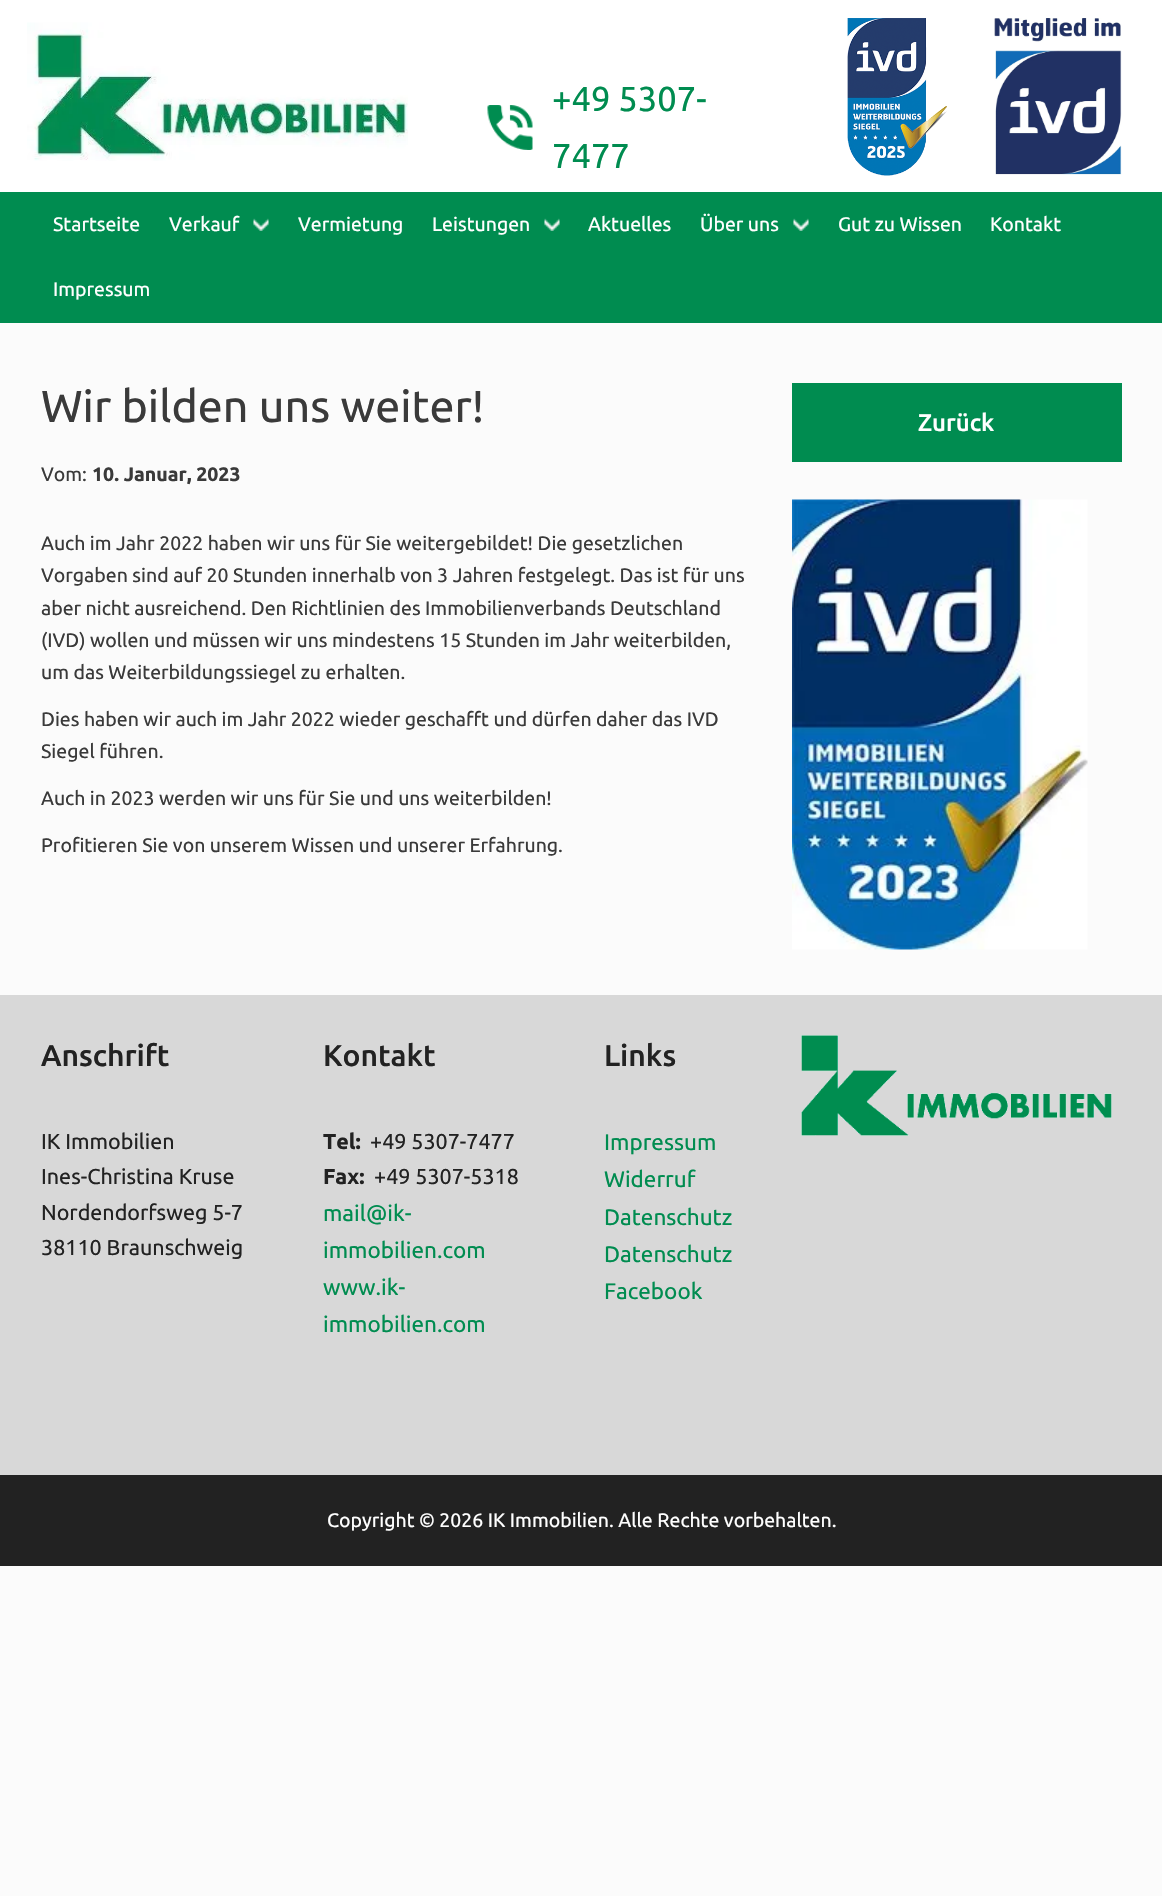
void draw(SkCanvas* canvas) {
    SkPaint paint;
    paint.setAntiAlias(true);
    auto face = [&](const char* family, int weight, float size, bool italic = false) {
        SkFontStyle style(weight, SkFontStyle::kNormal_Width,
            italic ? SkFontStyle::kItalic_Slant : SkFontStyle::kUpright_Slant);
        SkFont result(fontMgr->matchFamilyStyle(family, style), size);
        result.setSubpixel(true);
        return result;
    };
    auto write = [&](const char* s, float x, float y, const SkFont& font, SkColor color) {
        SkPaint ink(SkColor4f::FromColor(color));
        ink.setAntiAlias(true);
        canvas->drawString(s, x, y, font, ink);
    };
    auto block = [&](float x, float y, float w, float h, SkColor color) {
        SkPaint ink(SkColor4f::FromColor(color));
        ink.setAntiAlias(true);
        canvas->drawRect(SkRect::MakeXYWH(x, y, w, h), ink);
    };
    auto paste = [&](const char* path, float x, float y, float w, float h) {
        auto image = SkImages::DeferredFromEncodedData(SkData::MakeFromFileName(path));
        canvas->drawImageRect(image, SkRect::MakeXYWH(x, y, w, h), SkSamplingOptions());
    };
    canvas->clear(SkColorSetRGB(251, 251, 251));
    block(0, 0, 1162, 192, SK_ColorWHITE);
    paste("pic1.png", 27, 22, 381, 139);
    paste("pic2.png", 487, 105, 46, 45);
    auto kFont1 = face("Ubuntu", 400, 34.5f);
    write("+49 5307-", 552, 111, kFont1, SkColorSetRGB(0, 140, 80));
    write("7477", 552, 168, kFont1, SkColorSetRGB(0, 140, 80));
    paste("pic3.png", 847, 18, 100, 158);
    paste("pic4.png", 994, 18, 128, 157);
    block(0, 192, 1162, 131, SkColorSetRGB(0, 140, 80));
    auto kFont2 = face("Ubuntu", 400, 19.5f);
    write("Startseite", 53, 231, kFont2, SK_ColorWHITE);
    write("Verkauf", 169, 231, kFont2, SK_ColorWHITE);
    paste("pic5.png", 253, 218, 16, 13);
    write("Vermietung", 298, 231, kFont2, SK_ColorWHITE);
    write("Leistungen", 432, 231, kFont2, SK_ColorWHITE);
    paste("pic6.png", 544, 218, 16, 13);
    write("Aktuelles", 588, 231, kFont2, SK_ColorWHITE);
    write("Über uns", 700, 231, kFont2, SK_ColorWHITE);
    paste("pic5.png", 793, 218, 16, 13);
    write("Gut zu Wissen", 838, 231, kFont2, SK_ColorWHITE);
    write("Kontakt", 990, 231, kFont2, SK_ColorWHITE);
    write("Impressum", 53, 296, kFont2, SK_ColorWHITE);
    auto kFont3 = face("Ubuntu", 400, 44.75f);
    write("Wir bilden uns weiter!", 41, 422, kFont3, SkColorSetRGB(58, 58, 58));
    write("Vom:", 41, 481, kFont2, SkColorSetRGB(58, 58, 58));
    auto kFont4 = face("Ubuntu", 700, 19.5f);
    write("10. Januar, 2023", 92, 481, kFont4, SkColorSetRGB(58, 58, 58));
    write("Auch im Jahr 2022 haben wir uns für Sie weitergebildet! Die gesetzlichen", 41, 550, kFont2, SkColorSetRGB(58, 58, 58));
    write("Vorgaben sind auf 20 Stunden innerhalb von 3 Jahren festgelegt. Das ist für uns", 41, 582, kFont2, SkColorSetRGB(58, 58, 58));
    write("aber nicht ausreichend. Den Richtlinien des Immobilienverbands Deutschland", 41, 615, kFont2, SkColorSetRGB(58, 58, 58));
    write("(IVD) wollen und müssen wir uns mindestens 15 Stunden im Jahr weiterbilden,", 41, 647, kFont2, SkColorSetRGB(58, 58, 58));
    write("um das Weiterbildungssiegel zu erhalten.", 41, 679, kFont2, SkColorSetRGB(58, 58, 58));
    write("Dies haben wir auch im Jahr 2022 wieder geschafft und dürfen daher das IVD", 41, 726, kFont2, SkColorSetRGB(58, 58, 58));
    write("Siegel führen.", 41, 758, kFont2, SkColorSetRGB(58, 58, 58));
    write("Auch in 2023 werden wir uns für Sie und uns weiterbilden!", 41, 805, kFont2, SkColorSetRGB(58, 58, 58));
    write("Profitieren Sie von unserem Wissen und unserer Erfahrung.", 41, 852, kFont2, SkColorSetRGB(58, 58, 58));
    block(792, 383, 330, 79, SkColorSetRGB(0, 140, 80));
    auto kFont5 = face("Ubuntu", 500, 24);
    write("Zurück", 918, 431, kFont5, SK_ColorWHITE);
    paste("pic7.png", 792, 499, 296, 451);
    block(0, 995, 1162, 480, SkColorSetRGB(216, 216, 216));
    auto kFont6 = face("Ubuntu", 500, 30);
    write("Anschrift", 41, 1066, kFont6, SkColorSetRGB(34, 34, 34));
    auto kFont7 = face("Ubuntu", 400, 21.5f);
    write("IK Immobilien", 41, 1149, kFont7, SkColorSetRGB(34, 34, 34));
    write("Ines-Christina Kruse", 41, 1184, kFont7, SkColorSetRGB(34, 34, 34));
    write("Nordendorfsweg 5-7", 41, 1220, kFont7, SkColorSetRGB(34, 34, 34));
    write("38110 Braunschweig", 41, 1255, kFont7, SkColorSetRGB(34, 34, 34));
    write("Kontakt", 323, 1066, kFont6, SkColorSetRGB(34, 34, 34));
    auto kFont8 = face("Ubuntu", 700, 21.5f);
    write("Tel:", 323, 1149, kFont8, SkColorSetRGB(34, 34, 34));
    write("+49 5307-7477", 370, 1149, kFont7, SkColorSetRGB(34, 34, 34));
    write("Fax:", 323, 1184, kFont8, SkColorSetRGB(34, 34, 34));
    write("+49 5307-5318", 374, 1184, kFont7, SkColorSetRGB(34, 34, 34));
    auto kFont9 = face("Ubuntu", 400, 22.5f);
    write("mail@ik-", 323, 1221, kFont9, SkColorSetRGB(0, 140, 80));
    write("immobilien.com", 323, 1258, kFont9, SkColorSetRGB(0, 140, 80));
    write("www.ik-", 323, 1295, kFont9, SkColorSetRGB(0, 140, 80));
    write("immobilien.com", 323, 1332, kFont9, SkColorSetRGB(0, 140, 80));
    write("Links", 604, 1066, kFont6, SkColorSetRGB(34, 34, 34));
    write("Impressum", 604, 1150, kFont9, SkColorSetRGB(0, 140, 80));
    write("Widerruf", 604, 1187, kFont9, SkColorSetRGB(0, 140, 80));
    write("Datenschutz", 604, 1225, kFont9, SkColorSetRGB(0, 140, 80));
    write("Datenschutz", 604, 1262, kFont9, SkColorSetRGB(0, 140, 80));
    write("Facebook", 604, 1299, kFont9, SkColorSetRGB(0, 140, 80));
    paste("pic8.png", 801, 1035, 311, 101);
    block(0, 1475, 1162, 91, SkColorSetRGB(34, 34, 34));
    write("Copyright © 2026 IK Immobilien. Alle Rechte vorbehalten.", 327, 1527, kFont2, SK_ColorWHITE);
}
